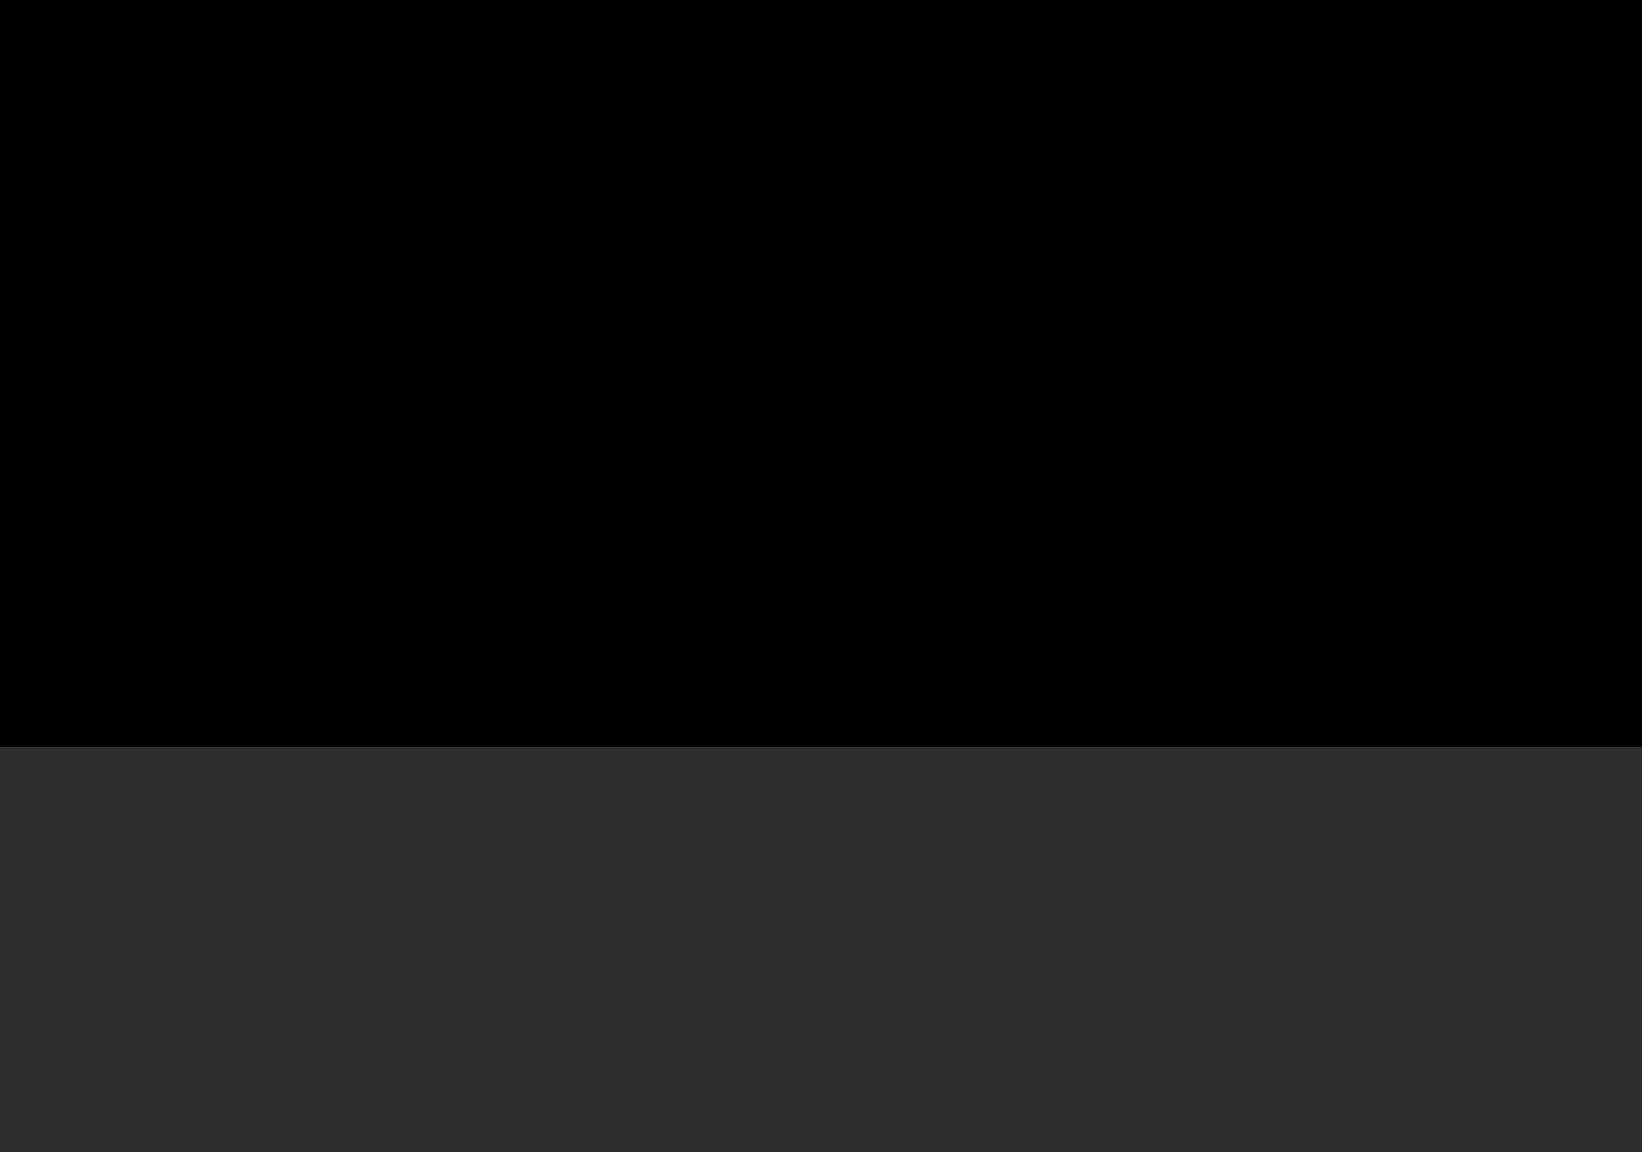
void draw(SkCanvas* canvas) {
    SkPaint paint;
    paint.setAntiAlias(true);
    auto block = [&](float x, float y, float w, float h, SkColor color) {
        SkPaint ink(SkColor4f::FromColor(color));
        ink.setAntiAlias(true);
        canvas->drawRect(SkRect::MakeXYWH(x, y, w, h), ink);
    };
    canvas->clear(SK_ColorBLACK);
    block(0, 747, 1642, 405, SkColorSetRGB(47, 46, 46));
}
